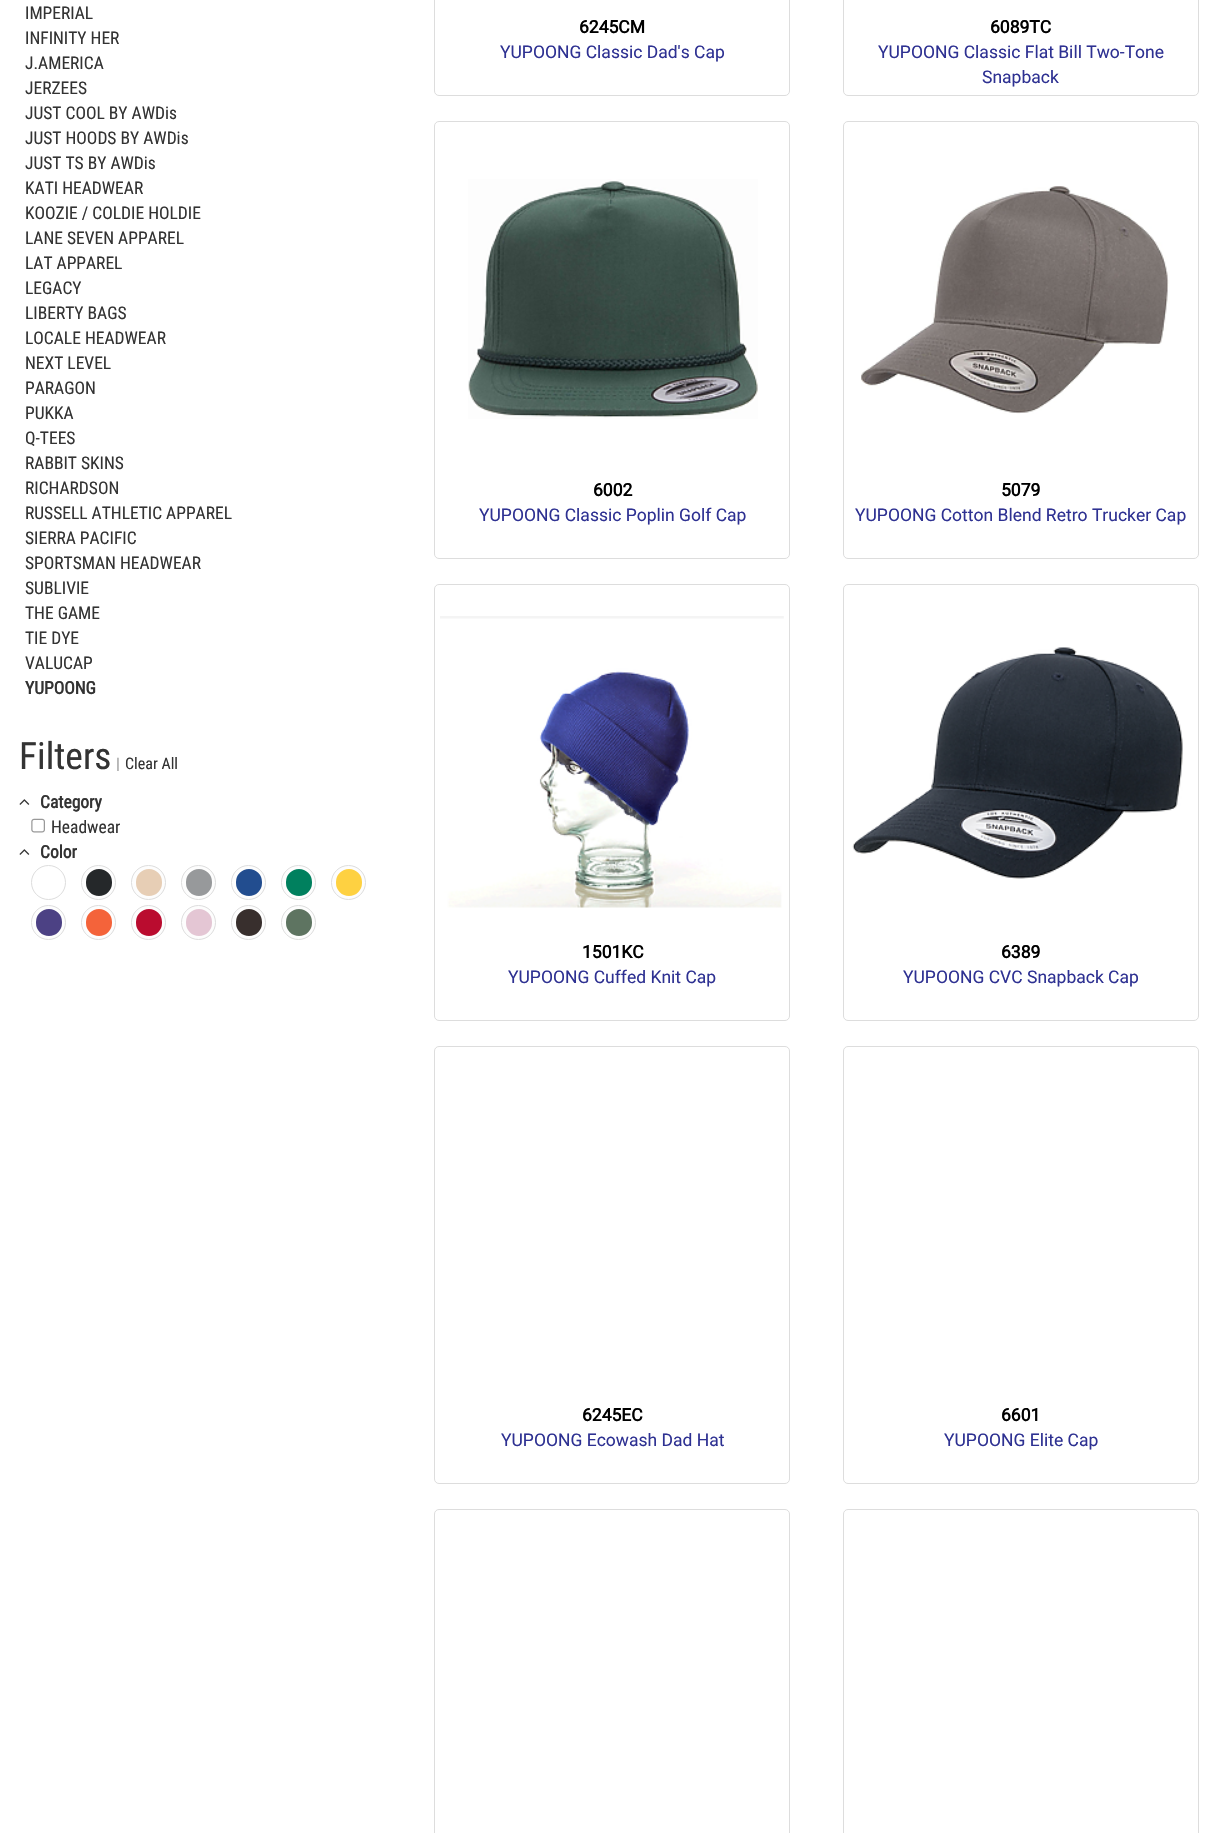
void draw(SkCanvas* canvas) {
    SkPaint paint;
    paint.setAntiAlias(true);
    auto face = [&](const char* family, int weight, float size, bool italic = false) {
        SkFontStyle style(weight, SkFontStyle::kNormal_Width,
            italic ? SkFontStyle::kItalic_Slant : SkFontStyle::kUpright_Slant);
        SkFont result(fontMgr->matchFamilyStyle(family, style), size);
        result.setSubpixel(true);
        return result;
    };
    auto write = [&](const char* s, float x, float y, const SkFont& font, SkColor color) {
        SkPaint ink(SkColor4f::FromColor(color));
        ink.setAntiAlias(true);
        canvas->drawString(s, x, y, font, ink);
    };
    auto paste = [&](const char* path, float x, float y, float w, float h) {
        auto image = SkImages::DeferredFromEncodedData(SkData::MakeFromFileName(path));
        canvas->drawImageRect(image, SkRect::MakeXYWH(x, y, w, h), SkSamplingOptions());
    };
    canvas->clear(SK_ColorWHITE);
    auto kFont1 = face("Roboto Condensed", 400, 17.5f);
    write("IMPERIAL", 25, 19, kFont1, SkColorSetRGB(51, 51, 51));
    write("INFINITY HER", 25, 44, kFont1, SkColorSetRGB(51, 51, 51));
    write("J.AMERICA", 25, 69, kFont1, SkColorSetRGB(51, 51, 51));
    write("JERZEES", 25, 94, kFont1, SkColorSetRGB(51, 51, 51));
    write("JUST COOL BY AWDis", 25, 119, kFont1, SkColorSetRGB(51, 51, 51));
    write("JUST HOODS BY AWDis", 25, 144, kFont1, SkColorSetRGB(51, 51, 51));
    write("JUST TS BY AWDis", 25, 169, kFont1, SkColorSetRGB(51, 51, 51));
    write("KATI HEADWEAR", 25, 194, kFont1, SkColorSetRGB(51, 51, 51));
    write("KOOZIE / COLDIE HOLDIE", 25, 219, kFont1, SkColorSetRGB(51, 51, 51));
    write("LANE SEVEN APPAREL", 25, 244, kFont1, SkColorSetRGB(51, 51, 51));
    write("LAT APPAREL", 25, 269, kFont1, SkColorSetRGB(51, 51, 51));
    write("LEGACY", 25, 294, kFont1, SkColorSetRGB(51, 51, 51));
    write("LIBERTY BAGS", 25, 319, kFont1, SkColorSetRGB(51, 51, 51));
    write("LOCALE HEADWEAR", 25, 344, kFont1, SkColorSetRGB(51, 51, 51));
    write("NEXT LEVEL", 25, 369, kFont1, SkColorSetRGB(51, 51, 51));
    write("PARAGON", 25, 394, kFont1, SkColorSetRGB(51, 51, 51));
    write("PUKKA", 25, 419, kFont1, SkColorSetRGB(51, 51, 51));
    write("Q-TEES", 25, 444, kFont1, SkColorSetRGB(51, 51, 51));
    write("RABBIT SKINS", 25, 469, kFont1, SkColorSetRGB(51, 51, 51));
    write("RICHARDSON", 25, 494, kFont1, SkColorSetRGB(51, 51, 51));
    write("RUSSELL ATHLETIC APPAREL", 25, 519, kFont1, SkColorSetRGB(51, 51, 51));
    write("SIERRA PACIFIC", 25, 544, kFont1, SkColorSetRGB(51, 51, 51));
    write("SPORTSMAN HEADWEAR", 25, 569, kFont1, SkColorSetRGB(51, 51, 51));
    write("SUBLIVIE", 25, 594, kFont1, SkColorSetRGB(51, 51, 51));
    write("THE GAME", 25, 619, kFont1, SkColorSetRGB(51, 51, 51));
    write("TIE DYE", 25, 644, kFont1, SkColorSetRGB(51, 51, 51));
    write("VALUCAP", 25, 669, kFont1, SkColorSetRGB(51, 51, 51));
    auto kFont2 = face("Roboto Condensed", 700, 17.5f);
    write("YUPOONG", 25, 694, kFont2, SkColorSetRGB(51, 51, 51));
    auto kFont3 = face("Roboto Condensed", 400, 37.5f);
    write("Filters", 19, 769, kFont3, SkColorSetRGB(51, 51, 51));
    auto kFont4 = face("Roboto Condensed", 400, 16);
    write("|", 116, 769, kFont4, SkColorSetRGB(153, 153, 153));
    write("Clear All", 125, 769, kFont4, SkColorSetRGB(51, 51, 51));
    paste("pic1.png", 19, 799, 11, 6);
    write("Category", 40, 808, kFont2, SkColorSetRGB(51, 51, 51));
    paste("pic2.png", 31, 818, 14, 15);
    write("Headwear", 51, 833, kFont1, SkColorSetRGB(51, 51, 51));
    paste("pic1.png", 19, 849, 11, 6);
    write("Color", 40, 858, kFont2, SkColorSetRGB(51, 51, 51));
    paint.setStyle(SkPaint::kStroke_Style);
    paint.setStrokeWidth(1);
    paint.setColor(SkColorSetRGB(221, 221, 221));
    canvas->drawCircle(48.5f, 882.5f, 17, paint);
    paint.setStyle(SkPaint::kFill_Style);
    paint.setColor(SkColorSetRGB(37, 40, 42));
    canvas->drawRoundRect(SkRect::MakeXYWH(84.5f, 867.5f, 29, 30), 14.5f, 14.5f, paint);
    paint.setStyle(SkPaint::kStroke_Style);
    paint.setStrokeWidth(3);
    paint.setColor(SkColorSetRGB(253, 253, 253));
    canvas->drawRoundRect(SkRect::MakeXYWH(84.5f, 867.5f, 29, 30), 14.5f, 14.5f, paint);
    paint.setStrokeWidth(1);
    paint.setColor(SkColorSetRGB(221, 221, 221));
    canvas->drawCircle(98.5f, 882.5f, 17, paint);
    paint.setStyle(SkPaint::kFill_Style);
    paint.setColor(SkColorSetRGB(231, 206, 181));
    canvas->drawRoundRect(SkRect::MakeXYWH(134.5f, 867.5f, 29, 30), 14.5f, 14.5f, paint);
    paint.setStyle(SkPaint::kStroke_Style);
    paint.setStrokeWidth(3);
    paint.setColor(SkColorSetRGB(253, 253, 253));
    canvas->drawRoundRect(SkRect::MakeXYWH(134.5f, 867.5f, 29, 30), 14.5f, 14.5f, paint);
    paint.setStrokeWidth(1);
    paint.setColor(SkColorSetRGB(221, 221, 221));
    canvas->drawCircle(148.5f, 882.5f, 17, paint);
    paint.setStyle(SkPaint::kFill_Style);
    paint.setColor(SkColorSetRGB(151, 153, 155));
    canvas->drawRoundRect(SkRect::MakeXYWH(184.5f, 867.5f, 29, 30), 14.5f, 14.5f, paint);
    paint.setStyle(SkPaint::kStroke_Style);
    paint.setStrokeWidth(3);
    paint.setColor(SkColorSetRGB(253, 253, 253));
    canvas->drawRoundRect(SkRect::MakeXYWH(184.5f, 867.5f, 29, 30), 14.5f, 14.5f, paint);
    paint.setStrokeWidth(1);
    paint.setColor(SkColorSetRGB(221, 221, 221));
    canvas->drawCircle(198.5f, 882.5f, 17, paint);
    paint.setStyle(SkPaint::kFill_Style);
    paint.setColor(SkColorSetRGB(34, 77, 143));
    canvas->drawRoundRect(SkRect::MakeXYWH(234.5f, 867.5f, 29, 30), 14.5f, 14.5f, paint);
    paint.setStyle(SkPaint::kStroke_Style);
    paint.setStrokeWidth(3);
    paint.setColor(SkColorSetRGB(253, 253, 253));
    canvas->drawRoundRect(SkRect::MakeXYWH(234.5f, 867.5f, 29, 30), 14.5f, 14.5f, paint);
    paint.setStrokeWidth(1);
    paint.setColor(SkColorSetRGB(221, 221, 221));
    canvas->drawCircle(248.5f, 882.5f, 17, paint);
    paint.setStyle(SkPaint::kFill_Style);
    paint.setColor(SkColorSetRGB(0, 128, 94));
    canvas->drawRoundRect(SkRect::MakeXYWH(284.5f, 867.5f, 29, 30), 14.5f, 14.5f, paint);
    paint.setStyle(SkPaint::kStroke_Style);
    paint.setStrokeWidth(3);
    paint.setColor(SkColorSetRGB(253, 253, 253));
    canvas->drawRoundRect(SkRect::MakeXYWH(284.5f, 867.5f, 29, 30), 14.5f, 14.5f, paint);
    paint.setStrokeWidth(1);
    paint.setColor(SkColorSetRGB(221, 221, 221));
    canvas->drawCircle(298.5f, 882.5f, 17, paint);
    paint.setStyle(SkPaint::kFill_Style);
    paint.setColor(SkColorSetRGB(254, 209, 65));
    canvas->drawRoundRect(SkRect::MakeXYWH(334.5f, 867.5f, 29, 30), 14.5f, 14.5f, paint);
    paint.setStyle(SkPaint::kStroke_Style);
    paint.setStrokeWidth(3);
    paint.setColor(SkColorSetRGB(253, 253, 253));
    canvas->drawRoundRect(SkRect::MakeXYWH(334.5f, 867.5f, 29, 30), 14.5f, 14.5f, paint);
    paint.setStrokeWidth(1);
    paint.setColor(SkColorSetRGB(221, 221, 221));
    canvas->drawCircle(348.5f, 882.5f, 17, paint);
    paint.setStyle(SkPaint::kFill_Style);
    paint.setColor(SkColorSetRGB(76, 65, 132));
    canvas->drawRoundRect(SkRect::MakeXYWH(34.5f, 907.5f, 29, 30), 14.5f, 14.5f, paint);
    paint.setStyle(SkPaint::kStroke_Style);
    paint.setStrokeWidth(3);
    paint.setColor(SkColorSetRGB(253, 253, 253));
    canvas->drawRoundRect(SkRect::MakeXYWH(34.5f, 907.5f, 29, 30), 14.5f, 14.5f, paint);
    paint.setStrokeWidth(1);
    paint.setColor(SkColorSetRGB(221, 221, 221));
    canvas->drawCircle(48.5f, 922.5f, 17, paint);
    paint.setStyle(SkPaint::kFill_Style);
    paint.setColor(SkColorSetRGB(244, 99, 58));
    canvas->drawRoundRect(SkRect::MakeXYWH(84.5f, 907.5f, 29, 30), 14.5f, 14.5f, paint);
    paint.setStyle(SkPaint::kStroke_Style);
    paint.setStrokeWidth(3);
    paint.setColor(SkColorSetRGB(253, 253, 253));
    canvas->drawRoundRect(SkRect::MakeXYWH(84.5f, 907.5f, 29, 30), 14.5f, 14.5f, paint);
    paint.setStrokeWidth(1);
    paint.setColor(SkColorSetRGB(221, 221, 221));
    canvas->drawCircle(98.5f, 922.5f, 17, paint);
    paint.setStyle(SkPaint::kFill_Style);
    paint.setColor(SkColorSetRGB(186, 12, 47));
    canvas->drawRoundRect(SkRect::MakeXYWH(134.5f, 907.5f, 29, 30), 14.5f, 14.5f, paint);
    paint.setStyle(SkPaint::kStroke_Style);
    paint.setStrokeWidth(3);
    paint.setColor(SkColorSetRGB(253, 253, 253));
    canvas->drawRoundRect(SkRect::MakeXYWH(134.5f, 907.5f, 29, 30), 14.5f, 14.5f, paint);
    paint.setStrokeWidth(1);
    paint.setColor(SkColorSetRGB(221, 221, 221));
    canvas->drawCircle(148.5f, 922.5f, 17, paint);
    paint.setStyle(SkPaint::kFill_Style);
    paint.setColor(SkColorSetRGB(228, 198, 212));
    canvas->drawRoundRect(SkRect::MakeXYWH(184.5f, 907.5f, 29, 30), 14.5f, 14.5f, paint);
    paint.setStyle(SkPaint::kStroke_Style);
    paint.setStrokeWidth(3);
    paint.setColor(SkColorSetRGB(253, 253, 253));
    canvas->drawRoundRect(SkRect::MakeXYWH(184.5f, 907.5f, 29, 30), 14.5f, 14.5f, paint);
    paint.setStrokeWidth(1);
    paint.setColor(SkColorSetRGB(221, 221, 221));
    canvas->drawCircle(198.5f, 922.5f, 17, paint);
    paint.setStyle(SkPaint::kFill_Style);
    paint.setColor(SkColorSetRGB(56, 47, 45));
    canvas->drawRoundRect(SkRect::MakeXYWH(234.5f, 907.5f, 29, 30), 14.5f, 14.5f, paint);
    paint.setStyle(SkPaint::kStroke_Style);
    paint.setStrokeWidth(3);
    paint.setColor(SkColorSetRGB(253, 253, 253));
    canvas->drawRoundRect(SkRect::MakeXYWH(234.5f, 907.5f, 29, 30), 14.5f, 14.5f, paint);
    paint.setStrokeWidth(1);
    paint.setColor(SkColorSetRGB(221, 221, 221));
    canvas->drawCircle(248.5f, 922.5f, 17, paint);
    paint.setStyle(SkPaint::kFill_Style);
    paint.setColor(SkColorSetRGB(94, 116, 97));
    canvas->drawRoundRect(SkRect::MakeXYWH(284.5f, 907.5f, 29, 30), 14.5f, 14.5f, paint);
    paint.setStyle(SkPaint::kStroke_Style);
    paint.setStrokeWidth(3);
    paint.setColor(SkColorSetRGB(253, 253, 253));
    canvas->drawRoundRect(SkRect::MakeXYWH(284.5f, 907.5f, 29, 30), 14.5f, 14.5f, paint);
    paint.setStrokeWidth(1);
    paint.setColor(SkColorSetRGB(221, 221, 221));
    canvas->drawCircle(298.5f, 922.5f, 17, paint);
    canvas->drawRoundRect(SkRect::MakeXYWH(434.5f, -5.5f, 355, 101), 4.5f, 4.5f, paint);
    auto kFont5 = face("Roboto", 700, 17.5f);
    write("6245CM", 579, 33, kFont5, SK_ColorBLACK);
    auto kFont6 = face("Roboto", 400, 17.5f);
    write("YUPOONG Classic Dad's Cap", 500, 58, kFont6, SkColorSetRGB(46, 49, 146));
    canvas->drawRoundRect(SkRect::MakeXYWH(843.5f, -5.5f, 355, 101), 4.5f, 4.5f, paint);
    write("6089TC", 990, 33, kFont5, SK_ColorBLACK);
    write("YUPOONG Classic Flat Bill Two-Tone", 878, 58, kFont6, SkColorSetRGB(46, 49, 146));
    write("Snapback", 982, 83, kFont6, SkColorSetRGB(46, 49, 146));
    canvas->drawRoundRect(SkRect::MakeXYWH(434.5f, 121.5f, 355, 437), 4.5f, 4.5f, paint);
    paste("pic3.png", 468, 179, 290, 240);
    write("6002", 593, 496, kFont5, SK_ColorBLACK);
    write("YUPOONG Classic Poplin Golf Cap", 479, 521, kFont6, SkColorSetRGB(46, 49, 146));
    canvas->drawRoundRect(SkRect::MakeXYWH(843.5f, 121.5f, 355, 437), 4.5f, 4.5f, paint);
    paste("pic4.png", 861, 186, 309, 228);
    write("5079", 1001, 496, kFont5, SK_ColorBLACK);
    write("YUPOONG Cotton Blend Retro Trucker Cap", 855, 521, kFont6, SkColorSetRGB(46, 49, 146));
    canvas->drawRoundRect(SkRect::MakeXYWH(434.5f, 584.5f, 355, 436), 4.5f, 4.5f, paint);
    paste("pic5.png", 440, 616, 344, 292);
    write("1501KC", 582, 958, kFont5, SK_ColorBLACK);
    write("YUPOONG Cuffed Knit Cap", 508, 983, kFont6, SkColorSetRGB(46, 49, 146));
    canvas->drawRoundRect(SkRect::MakeXYWH(843.5f, 584.5f, 355, 436), 4.5f, 4.5f, paint);
    paste("pic6.png", 852, 647, 331, 232);
    write("6389", 1001, 958, kFont5, SK_ColorBLACK);
    write("YUPOONG CVC Snapback Cap", 903, 983, kFont6, SkColorSetRGB(46, 49, 146));
    canvas->drawRoundRect(SkRect::MakeXYWH(434.5f, 1046.5f, 355, 437), 4.5f, 4.5f, paint);
    write("6245EC", 582, 1421, kFont5, SK_ColorBLACK);
    write("YUPOONG Ecowash Dad Hat", 501, 1446, kFont6, SkColorSetRGB(46, 49, 146));
    canvas->drawRoundRect(SkRect::MakeXYWH(843.5f, 1046.5f, 355, 437), 4.5f, 4.5f, paint);
    write("6601", 1001, 1421, kFont5, SK_ColorBLACK);
    write("YUPOONG Elite Cap", 944, 1446, kFont6, SkColorSetRGB(46, 49, 146));
    canvas->drawRoundRect(SkRect::MakeXYWH(434.5f, 1509.5f, 355, 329), 4.5f, 4.5f, paint);
    canvas->drawRoundRect(SkRect::MakeXYWH(843.5f, 1509.5f, 355, 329), 4.5f, 4.5f, paint);
}
